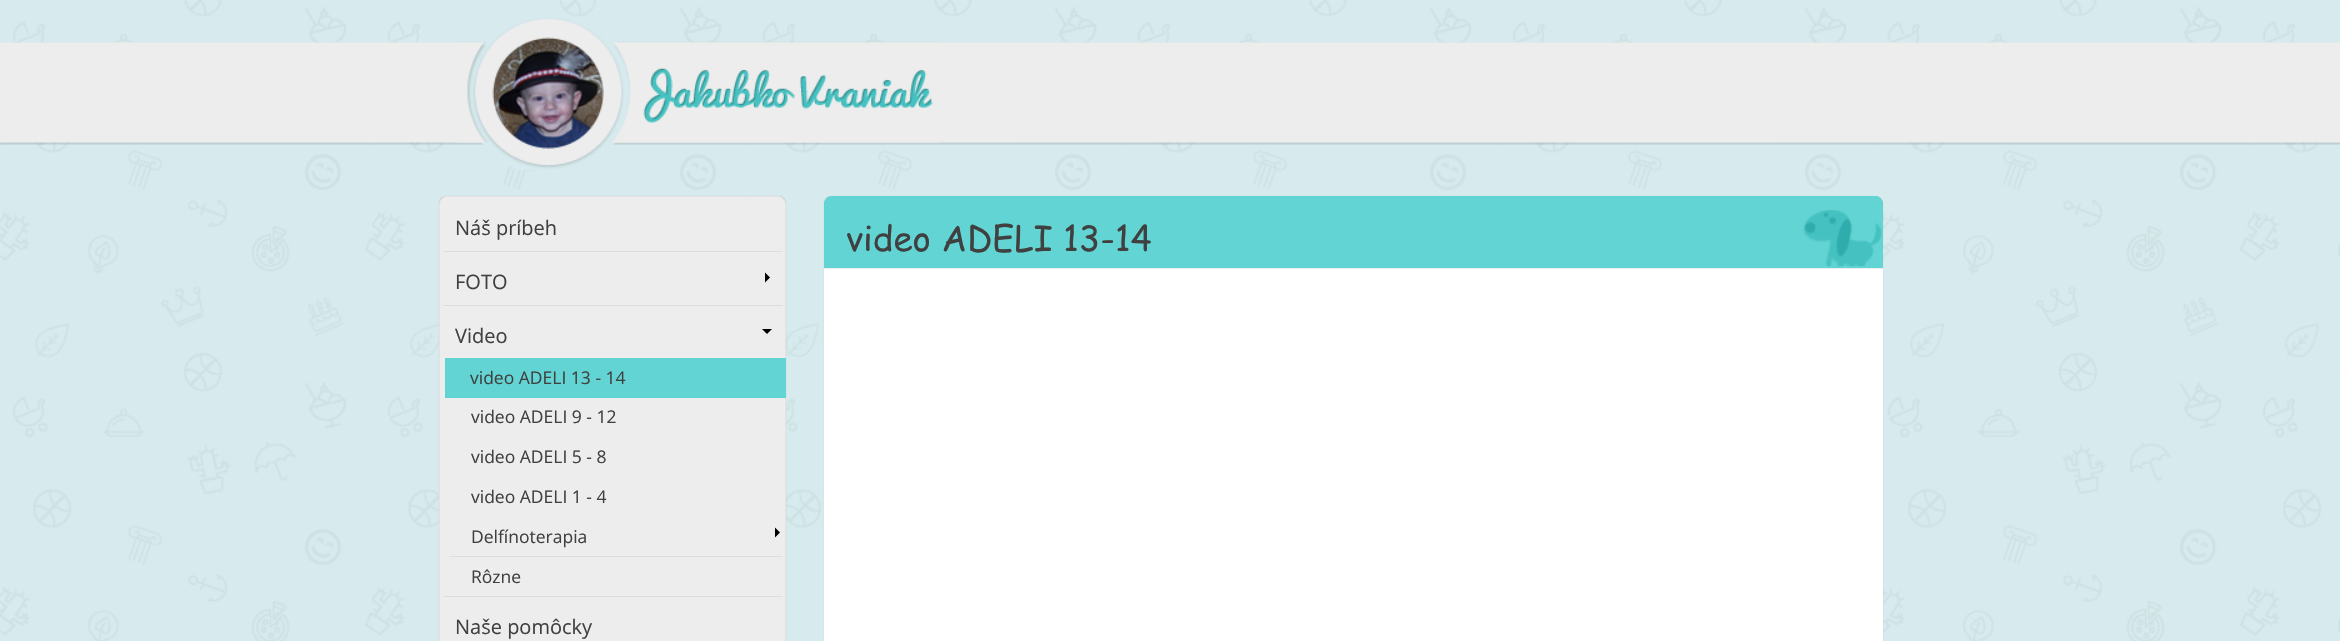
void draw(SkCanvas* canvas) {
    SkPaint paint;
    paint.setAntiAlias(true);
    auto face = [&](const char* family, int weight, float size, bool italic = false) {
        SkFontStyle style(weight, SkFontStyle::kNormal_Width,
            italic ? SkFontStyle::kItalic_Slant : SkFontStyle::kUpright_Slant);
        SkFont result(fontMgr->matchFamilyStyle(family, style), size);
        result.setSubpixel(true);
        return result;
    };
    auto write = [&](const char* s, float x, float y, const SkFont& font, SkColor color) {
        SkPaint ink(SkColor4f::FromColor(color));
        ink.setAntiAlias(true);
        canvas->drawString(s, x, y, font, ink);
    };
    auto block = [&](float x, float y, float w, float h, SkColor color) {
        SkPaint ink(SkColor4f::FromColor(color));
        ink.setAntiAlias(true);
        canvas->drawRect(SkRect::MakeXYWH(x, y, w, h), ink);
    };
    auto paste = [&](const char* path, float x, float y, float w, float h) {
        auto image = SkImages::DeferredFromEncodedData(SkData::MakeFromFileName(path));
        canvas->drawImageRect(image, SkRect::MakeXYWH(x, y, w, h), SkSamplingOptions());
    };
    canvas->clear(SK_ColorWHITE);
    paste("pic1.png", 0, 0, 2340, 641);
    paste("pic2.png", 0, 42, 2340, 103);
    paste("pic3.png", 457, 18, 483, 152);
    paint.setColor(SkColorSetARGB(51, 0, 0, 0));
    paint.setMaskFilter(SkMaskFilter::MakeBlur(kNormal_SkBlurStyle, 0.5f));
    canvas->drawRoundRect(SkRect::MakeXYWH(439, 196, 347, 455), 8, 8, paint);
    paint.setMaskFilter(nullptr);
    paint.setColor(SkColorSetRGB(237, 237, 237));
    canvas->drawPath(SkPathBuilder().moveTo(447, 196.5f).lineTo(778, 196.5f).cubicTo(782, 196.5f, 785.5f, 200, 785.5f, 204).lineTo(785.5f, 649.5f).lineTo(439.5f, 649.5f).lineTo(439.5f, 204).cubicTo(439.5f, 200, 443, 196.5f, 447, 196.5f).close().detach(), paint);
    paint.setStyle(SkPaint::kStroke_Style);
    paint.setStrokeWidth(1);
    paint.setColor(SkColorSetRGB(227, 227, 227));
    canvas->drawPath(SkPathBuilder().moveTo(447, 196.5f).lineTo(778, 196.5f).cubicTo(782, 196.5f, 785.5f, 200, 785.5f, 204).lineTo(785.5f, 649.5f).lineTo(439.5f, 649.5f).lineTo(439.5f, 204).cubicTo(439.5f, 200, 443, 196.5f, 447, 196.5f).close().detach(), paint);
    canvas->save();
    canvas->clipRect(SkRect::MakeXYWH(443, 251, 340, 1));
    paint.setStyle(SkPaint::kFill_Style);
    paint.setColor(SkColorSetARGB(51, 0, 0, 0));
    paint.setMaskFilter(SkMaskFilter::MakeBlur(kNormal_SkBlurStyle, 1));
    canvas->drawRect(SkRect::MakeXYWH(443, 203, 340, 48), paint);
    paint.setMaskFilter(nullptr);
    canvas->restore();
    auto kFont1 = face("Open Sans", 400, 20);
    write("Náš príbeh", 455, 235, kFont1, SkColorSetRGB(64, 64, 64));
    canvas->save();
    canvas->clipRect(SkRect::MakeXYWH(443, 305, 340, 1));
    paint.setMaskFilter(SkMaskFilter::MakeBlur(kNormal_SkBlurStyle, 1));
    canvas->drawRect(SkRect::MakeXYWH(443, 256, 340, 49), paint);
    paint.setMaskFilter(nullptr);
    canvas->restore();
    write("FOTO", 455, 289, kFont1, SkColorSetRGB(64, 64, 64));
    paint.setColor(SK_ColorBLACK);
    canvas->drawPath(SkPathBuilder().moveTo(765, 282.5f).lineTo(765, 272.5f).lineTo(770, 277.5f).close().detach(), paint);
    canvas->save();
    canvas->clipRect(SkRect::MakeXYWH(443, 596, 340, 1));
    paint.setColor(SkColorSetARGB(51, 0, 0, 0));
    paint.setMaskFilter(SkMaskFilter::MakeBlur(kNormal_SkBlurStyle, 1));
    canvas->drawRect(SkRect::MakeXYWH(443, 310, 340, 286), paint);
    paint.setMaskFilter(nullptr);
    canvas->restore();
    write("Video", 455, 343, kFont1, SkColorSetRGB(64, 64, 64));
    paint.setColor(SK_ColorBLACK);
    canvas->drawPath(SkPathBuilder().moveTo(762, 329).lineTo(772, 329).lineTo(767, 334).close().detach(), paint);
    block(445, 358, 341, 40, SkColorSetRGB(98, 212, 212));
    auto kFont2 = face("Open Sans", 400, 17.5f);
    write("video ADELI 13 - 14", 470, 384, kFont2, SkColorSetRGB(64, 64, 64));
    write("video ADELI 9 - 12", 471, 423, kFont2, SkColorSetRGB(64, 64, 64));
    write("video ADELI 5 - 8", 471, 463, kFont2, SkColorSetRGB(64, 64, 64));
    write("video ADELI 1 - 4", 471, 503, kFont2, SkColorSetRGB(64, 64, 64));
    canvas->save();
    canvas->clipRect(SkRect::MakeXYWH(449, 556, 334, 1));
    paint.setColor(SkColorSetARGB(51, 0, 0, 0));
    paint.setMaskFilter(SkMaskFilter::MakeBlur(kNormal_SkBlurStyle, 1));
    canvas->drawRect(SkRect::MakeXYWH(449, 521, 334, 35), paint);
    paint.setMaskFilter(nullptr);
    canvas->restore();
    write("Delfínoterapia", 471, 543, kFont2, SkColorSetRGB(64, 64, 64));
    paint.setColor(SK_ColorBLACK);
    canvas->drawPath(SkPathBuilder().moveTo(775, 537.5f).lineTo(775, 527.5f).lineTo(780, 532.5f).close().detach(), paint);
    write("Rôzne", 471, 583, kFont2, SkColorSetRGB(64, 64, 64));
    write("Naše pomôcky", 455, 634, kFont1, SkColorSetRGB(64, 64, 64));
    paint.setColor(SkColorSetARGB(51, 0, 0, 0));
    paint.setMaskFilter(SkMaskFilter::MakeBlur(kNormal_SkBlurStyle, 0.5f));
    canvas->drawRoundRect(SkRect::MakeXYWH(824, 196, 1059, 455), 8, 8, paint);
    paint.setMaskFilter(nullptr);
    paint.setColor(SkColorSetRGB(98, 212, 212));
    canvas->drawPath(SkPathBuilder().moveTo(832, 196).lineTo(1875, 196).cubicTo(1879.5f, 196, 1883, 199.5f, 1883, 204).lineTo(1883, 269).lineTo(824, 269).lineTo(824, 204).cubicTo(824, 199.5f, 827.5f, 196, 832, 196).close().detach(), paint);
    block(824, 268, 1059, 1, SkColorSetRGB(238, 238, 238));
    auto kFont3 = face("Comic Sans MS", 400, 35);
    write("video ADELI 13-14", 846, 251, kFont3, SkColorSetRGB(64, 64, 64));
    paste("pic4.png", 1803, 210, 79, 57);
    block(824, 269, 1059, 372, SK_ColorWHITE);
}
